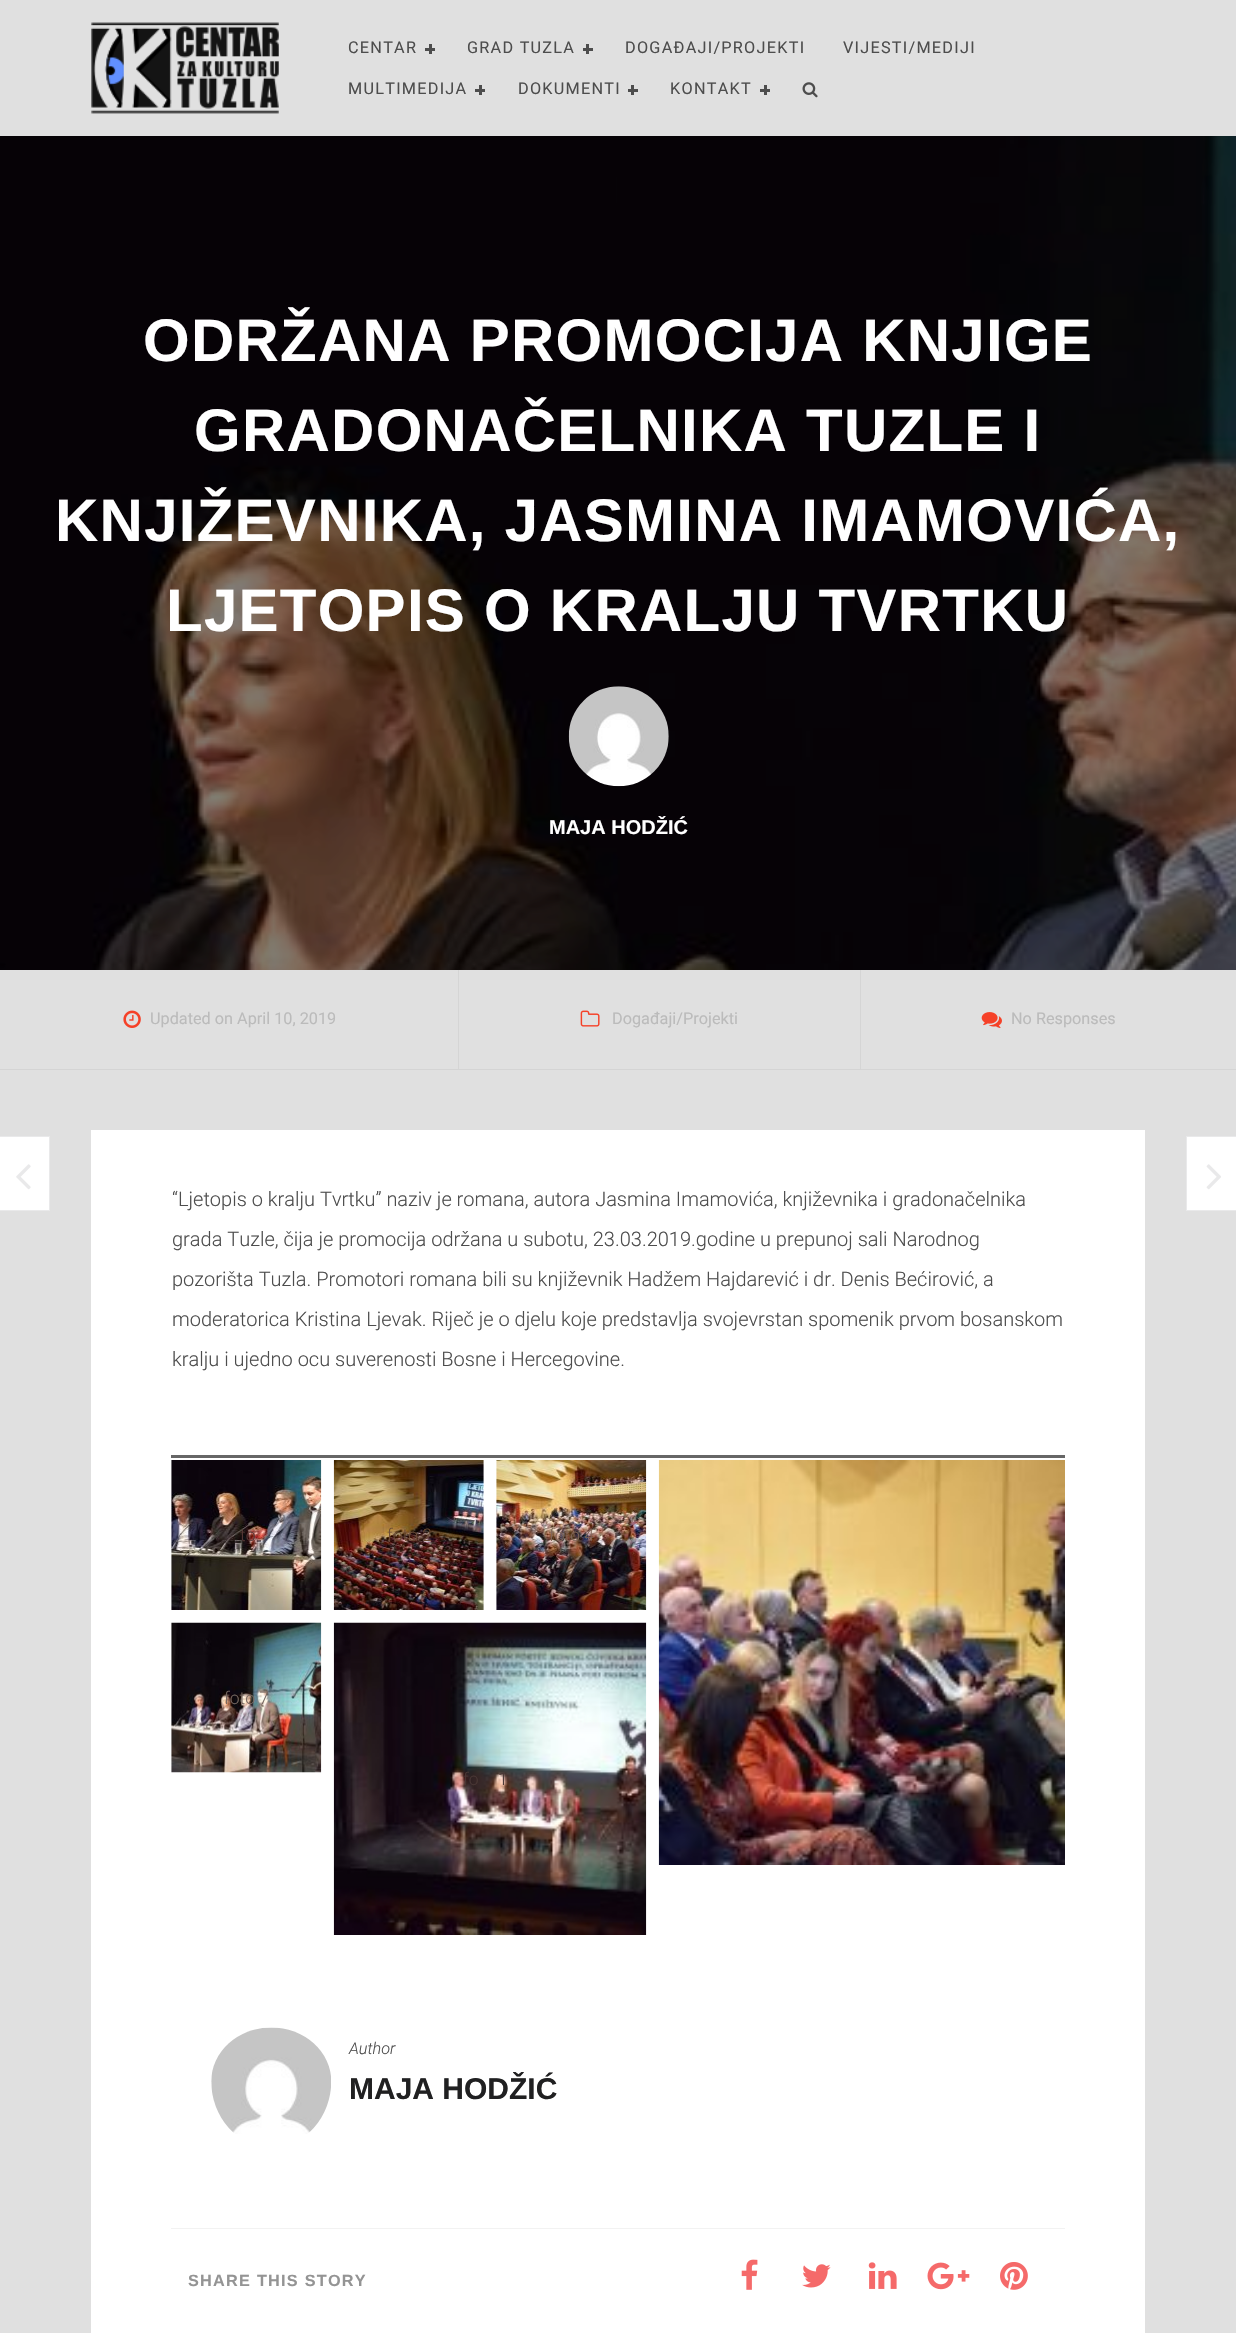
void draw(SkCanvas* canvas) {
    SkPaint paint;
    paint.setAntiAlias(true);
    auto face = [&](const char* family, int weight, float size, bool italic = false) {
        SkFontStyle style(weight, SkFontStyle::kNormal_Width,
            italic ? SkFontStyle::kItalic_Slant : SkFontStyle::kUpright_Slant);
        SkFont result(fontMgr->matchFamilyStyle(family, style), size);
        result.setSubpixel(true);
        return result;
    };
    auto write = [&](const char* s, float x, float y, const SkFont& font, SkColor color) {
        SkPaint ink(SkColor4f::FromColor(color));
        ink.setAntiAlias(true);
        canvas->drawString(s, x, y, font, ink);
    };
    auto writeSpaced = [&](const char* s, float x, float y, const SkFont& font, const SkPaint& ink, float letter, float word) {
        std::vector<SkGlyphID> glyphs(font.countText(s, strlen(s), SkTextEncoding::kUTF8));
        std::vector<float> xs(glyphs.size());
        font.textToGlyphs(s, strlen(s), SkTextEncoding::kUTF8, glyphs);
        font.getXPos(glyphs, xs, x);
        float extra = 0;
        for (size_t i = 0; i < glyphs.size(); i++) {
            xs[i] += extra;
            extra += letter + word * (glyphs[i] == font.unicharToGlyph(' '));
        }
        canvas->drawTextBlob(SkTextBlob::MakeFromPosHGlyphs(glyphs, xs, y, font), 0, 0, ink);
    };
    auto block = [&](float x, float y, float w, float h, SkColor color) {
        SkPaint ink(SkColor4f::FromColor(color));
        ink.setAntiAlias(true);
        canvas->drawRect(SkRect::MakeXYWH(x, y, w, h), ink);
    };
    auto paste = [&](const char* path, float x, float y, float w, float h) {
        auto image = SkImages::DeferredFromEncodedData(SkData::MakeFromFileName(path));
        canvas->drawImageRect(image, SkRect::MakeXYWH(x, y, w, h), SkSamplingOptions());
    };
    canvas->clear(SkColorSetRGB(224, 224, 224));
    paste("pic1.png", 91, 22, 188, 92);
    auto kFont1 = face("Roboto", 400, 16.25f);
    paint.setColor(SkColorSetRGB(77, 77, 77));
    writeSpaced("CENTAR", 348, 53, kFont1, paint, 1.25f, 0);
    block(429, 44, 3, 10, SkColorSetRGB(77, 77, 77));
    block(425, 48, 10, 3, SkColorSetRGB(77, 77, 77));
    writeSpaced("GRAD TUZLA", 467, 53, kFont1, paint, 1.25f, 0);
    block(586, 44, 3, 10, SkColorSetRGB(77, 77, 77));
    block(583, 48, 10, 3, SkColorSetRGB(77, 77, 77));
    writeSpaced("DOGAĐAJI/PROJEKTI", 625, 53, kFont1, paint, 1.25f, 0);
    writeSpaced("VIJESTI/MEDIJI", 843, 53, kFont1, paint, 1.25f, 0);
    writeSpaced("MULTIMEDIJA", 348, 94, kFont1, paint, 1.25f, 0);
    block(479, 85, 3, 10, SkColorSetRGB(77, 77, 77));
    block(475, 89, 10, 3, SkColorSetRGB(77, 77, 77));
    writeSpaced("DOKUMENTI", 518, 94, kFont1, paint, 1.25f, 0);
    block(631, 85, 3, 10, SkColorSetRGB(77, 77, 77));
    block(628, 89, 10, 3, SkColorSetRGB(77, 77, 77));
    writeSpaced("KONTAKT", 670, 94, kFont1, paint, 1.25f, 0);
    block(764, 85, 3, 10, SkColorSetRGB(77, 77, 77));
    block(760, 89, 10, 3, SkColorSetRGB(77, 77, 77));
    paste("pic2.png", 802, 82, 16, 16);
    paste("pic3.png", 0, 136, 1236, 834);
    auto kFont2 = face("Liberation Sans", 700, 60);
    paint.setColor(SK_ColorWHITE);
    writeSpaced("ODRŽANA PROMOCIJA KNJIGE", 143, 361, kFont2, paint, 1.25f, 0);
    writeSpaced("GRADONAČELNIKA TUZLE I", 194, 451, kFont2, paint, 1.25f, 0);
    writeSpaced("KNJIŽEVNIKA, JASMINA IMAMOVIĆA,", 55, 541, kFont2, paint, 1.25f, 0);
    writeSpaced("LJETOPIS O KRALJU TVRTKU", 166, 631, kFont2, paint, 1.25f, 0);
    paste("pic4.png", 568, 686, 101, 101);
    auto kFont3 = face("Liberation Sans", 700, 20);
    write("MAJA HODŽIĆ", 549, 834, kFont3, SK_ColorWHITE);
    paint.setColor(SkColorSetRGB(213, 213, 213));
    canvas->drawPath(SkPathBuilder().moveTo(459, 970).lineTo(459, 1070).lineTo(458, 1069).lineTo(458, 970).close().detach(), paint);
    paint.setColor(SkColorSetARGB(13, 0, 0, 0));
    canvas->drawPath(SkPathBuilder().moveTo(459, 1070).lineTo(0, 1070).lineTo(0, 1069).lineTo(458, 1069).close().detach(), paint);
    paste("pic5.png", 123, 1010, 18, 18);
    write("Updated on April 10, 2019", 150, 1024, kFont1, SkColorSetRGB(187, 187, 187));
    paint.setColor(SkColorSetRGB(213, 213, 213));
    canvas->drawPath(SkPathBuilder().moveTo(861, 970).lineTo(861, 1070).lineTo(860, 1069).lineTo(860, 970).close().detach(), paint);
    paint.setColor(SkColorSetARGB(13, 0, 0, 0));
    canvas->drawPath(SkPathBuilder().moveTo(861, 1070).lineTo(459, 1070).lineTo(459, 1069).lineTo(860, 1069).close().detach(), paint);
    paste("pic6.png", 580, 1010, 20, 17);
    write("Događaji/Projekti", 612, 1024, kFont1, SkColorSetRGB(187, 187, 187));
    block(861, 1069, 375, 1, SkColorSetRGB(213, 213, 213));
    paste("pic7.png", 981, 1012, 21, 16);
    write("No Responses", 1011, 1024, kFont1, SkColorSetRGB(187, 187, 187));
    block(91, 1130, 1054, 1203, SK_ColorWHITE);
    block(0, 1137, 49, 1, SK_ColorWHITE);
    paint.setStyle(SkPaint::kStroke_Style);
    paint.setStrokeWidth(1);
    paint.setColor(SkColorSetRGB(233, 233, 234));
    canvas->drawRect(SkRect::MakeXYWH(-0.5f, 1136.5f, 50, 74), paint);
    block(0, 1138, 49, 72, SK_ColorWHITE);
    paste("pic8.png", 16, 1164, 15, 26);
    paint.setStyle(SkPaint::kFill_Style);
    paint.setColor(SK_ColorWHITE);
    canvas->drawRect(SkRect::MakeXYWH(1186.5f, 1136.5f, 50, 74), paint);
    paint.setStyle(SkPaint::kStroke_Style);
    paint.setColor(SkColorSetRGB(233, 233, 234));
    canvas->drawRect(SkRect::MakeXYWH(1186.5f, 1136.5f, 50, 74), paint);
    paste("pic9.png", 1206, 1164, 15, 26);
    auto kFont4 = face("Roboto", 300, 20);
    write("“Ljetopis o kralju Tvrtku” naziv je romana, autora Jasmina Imamovića, književnika i gradonačelnika", 172, 1206, kFont4, SkColorSetRGB(77, 77, 77));
    write("grada Tuzle, čija je promocija održana u subotu, 23.03.2019.godine u prepunoj sali Narodnog", 172, 1246, kFont4, SkColorSetRGB(77, 77, 77));
    write("pozorišta Tuzla. Promotori romana bili su književnik Hadžem Hajdarević i dr. Denis Bećirović, a", 172, 1286, kFont4, SkColorSetRGB(77, 77, 77));
    write("moderatorica Kristina Ljevak. Riječ je o djelu koje predstavlja svojevrstan spomenik prvom bosanskom", 172, 1326, kFont4, SkColorSetRGB(77, 77, 77));
    write("kralju i ujedno ocu suverenosti Bosne i Hercegovine.", 172, 1366, kFont4, SkColorSetRGB(77, 77, 77));
    block(171, 1455, 894, 3, SkColorSetRGB(102, 102, 102));
    paste("pic10.png", 171, 1460, 151, 150);
    auto kFont5 = face("Roboto", 300, 17.5f);
    write("to", 240, 1541, kFont5, SkColorSetRGB(84, 54, 52));
    paste("pic11.png", 333, 1460, 151, 150);
    write("foto 2", 387, 1541, kFont5, SkColorSetRGB(107, 75, 53));
    paste("pic12.png", 496, 1460, 151, 150);
    write("foto 4", 549, 1541, kFont5, SkColorSetRGB(129, 101, 88));
    paste("pic13.png", 658, 1460, 407, 405);
    paste("pic14.png", 171, 1622, 151, 151);
    write("foto 7", 224, 1704, kFont5, SkColorSetRGB(117, 103, 96));
    paste("pic15.png", 333, 1622, 314, 313);
    write("fo", 463, 1785, kFont5, SkColorSetRGB(72, 54, 52));
    write("1", 498, 1785, kFont5, SkColorSetRGB(72, 54, 52));
    paste("pic16.png", 211, 2027, 120, 107);
    auto kFont6 = face("Roboto", 300, 16.25f, true);
    write("Author", 349, 2054, kFont6, SkColorSetRGB(77, 77, 77));
    auto kFont7 = face("Liberation Sans", 700, 30);
    write("MAJA HODŽIĆ", 349, 2099, kFont7, SkColorSetRGB(32, 32, 33));
    block(171, 2228, 894, 1, SkColorSetRGB(242, 242, 242));
    auto kFont8 = face("Liberation Sans", 700, 16.25f);
    paint.setStyle(SkPaint::kFill_Style);
    paint.setColor(SkColorSetRGB(148, 148, 148));
    writeSpaced("SHARE THIS STORY", 188, 2286, kFont8, paint, 1.25f, 0);
    paste("pic17.png", 741, 2259, 17, 31);
    paste("pic18.png", 802, 2264, 29, 24);
    paste("pic19.png", 868, 2262, 29, 27);
    paste("pic20.png", 927, 2262, 43, 28);
    paste("pic21.png", 1000, 2262, 28, 28);
}
